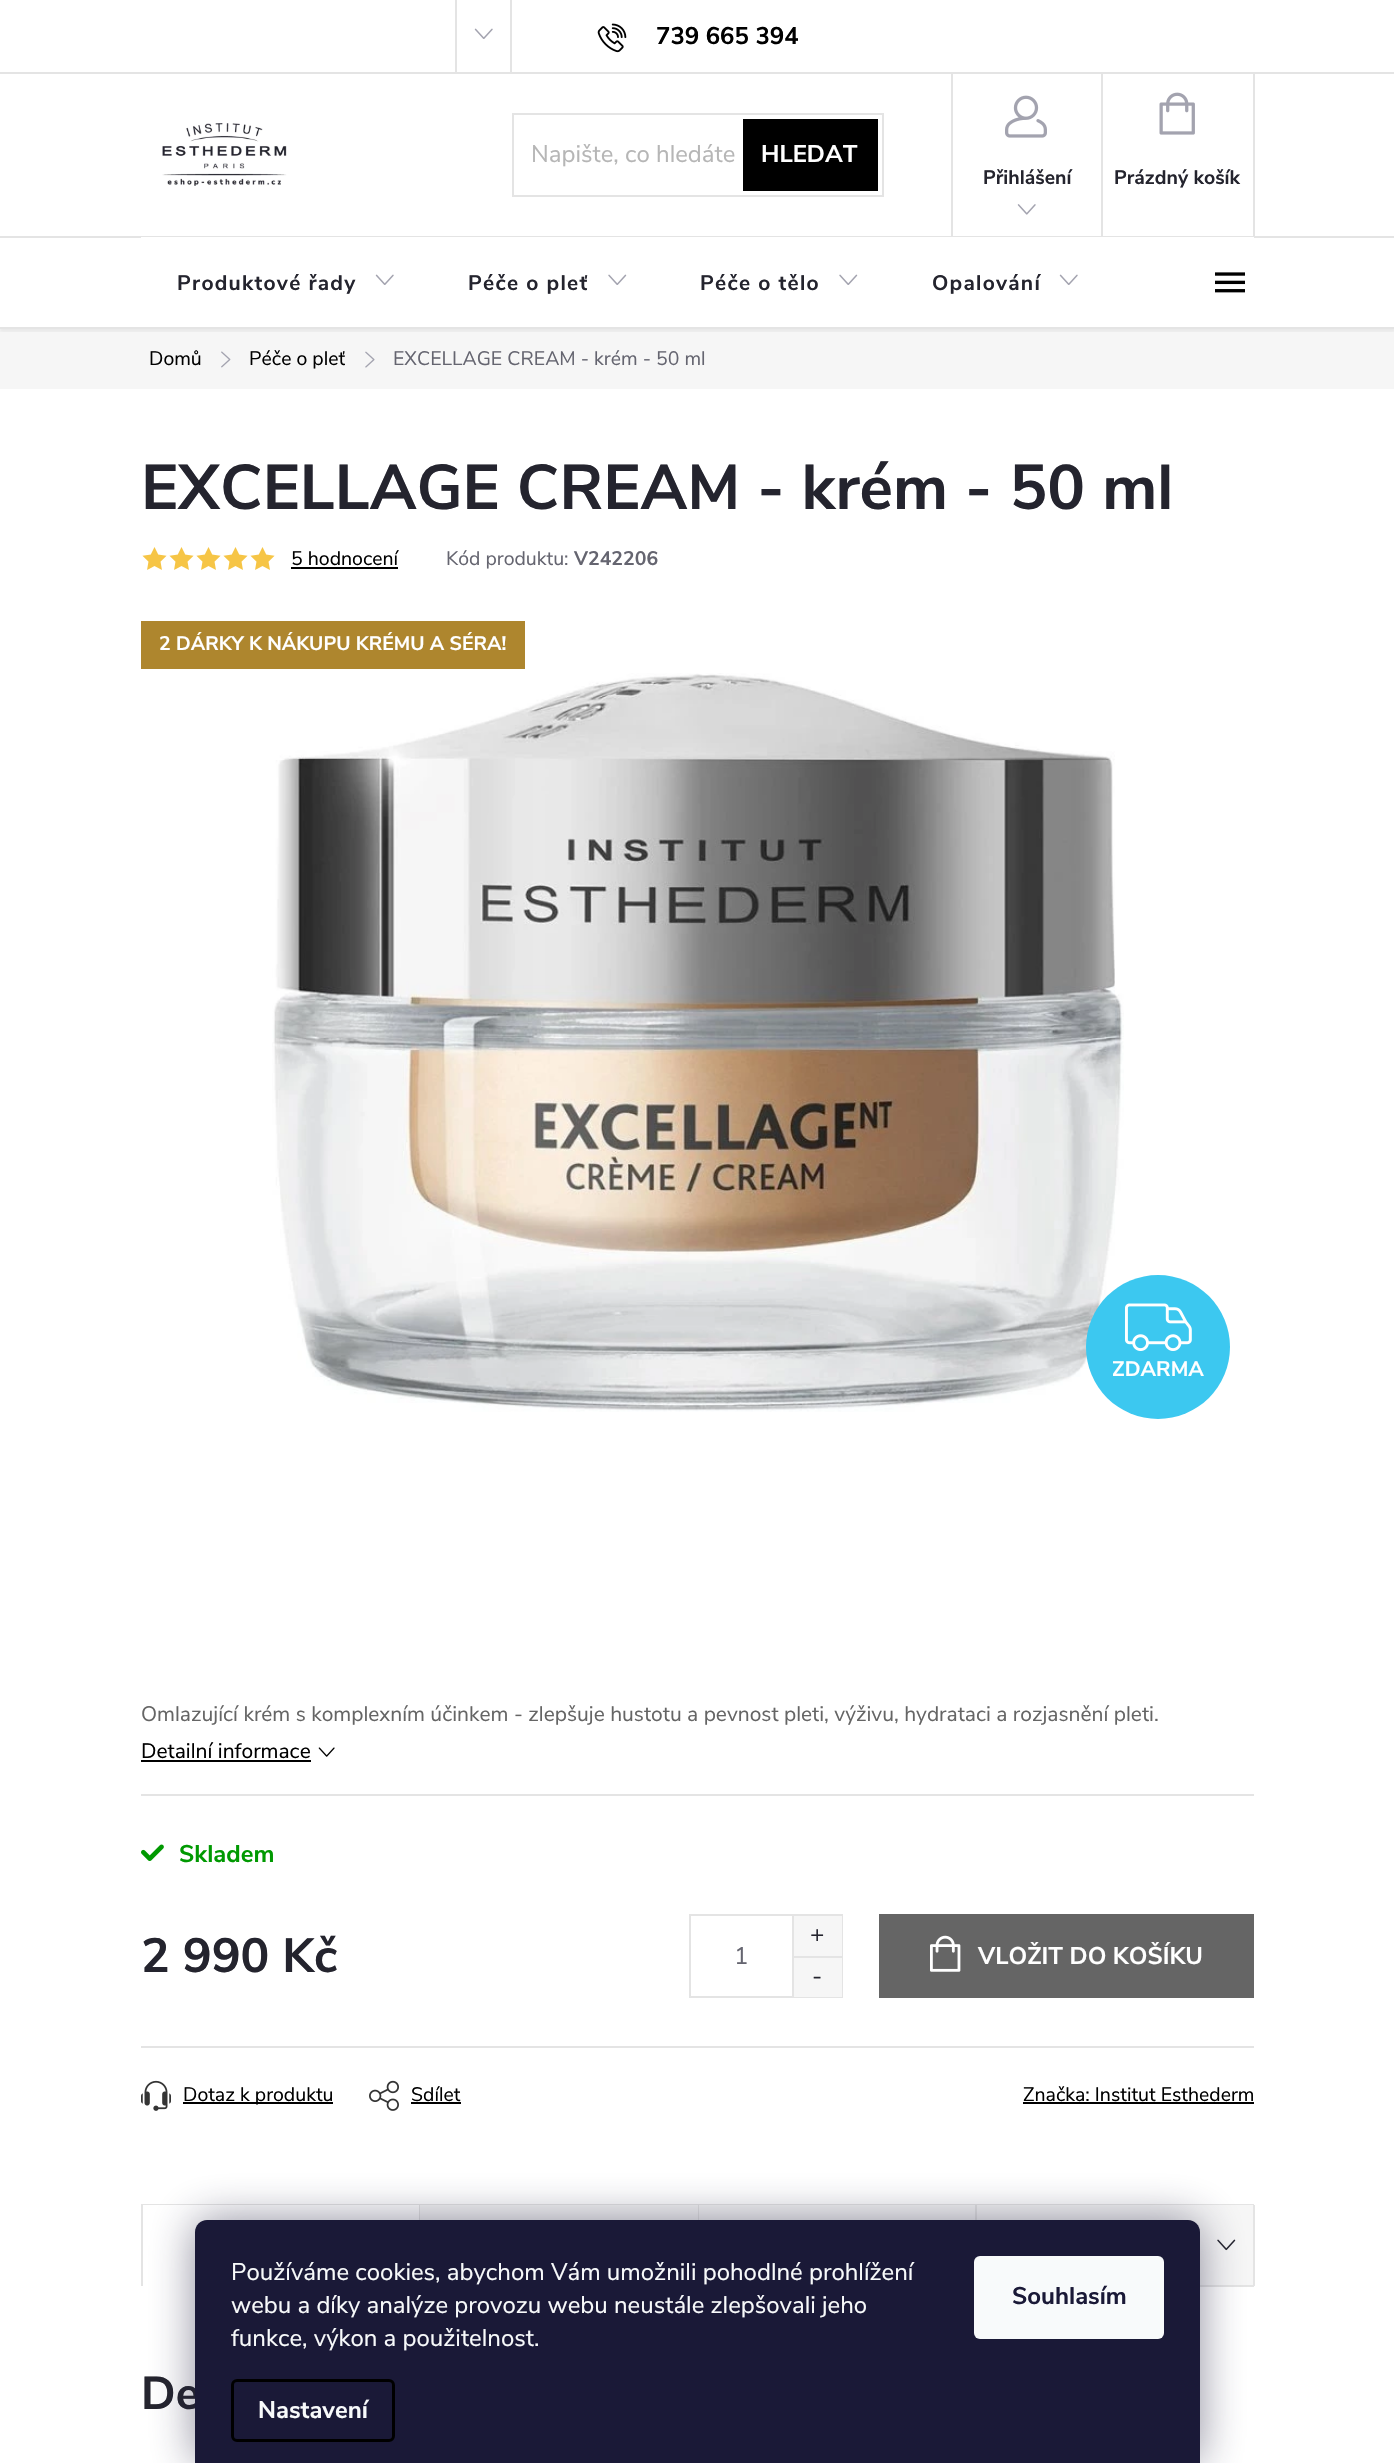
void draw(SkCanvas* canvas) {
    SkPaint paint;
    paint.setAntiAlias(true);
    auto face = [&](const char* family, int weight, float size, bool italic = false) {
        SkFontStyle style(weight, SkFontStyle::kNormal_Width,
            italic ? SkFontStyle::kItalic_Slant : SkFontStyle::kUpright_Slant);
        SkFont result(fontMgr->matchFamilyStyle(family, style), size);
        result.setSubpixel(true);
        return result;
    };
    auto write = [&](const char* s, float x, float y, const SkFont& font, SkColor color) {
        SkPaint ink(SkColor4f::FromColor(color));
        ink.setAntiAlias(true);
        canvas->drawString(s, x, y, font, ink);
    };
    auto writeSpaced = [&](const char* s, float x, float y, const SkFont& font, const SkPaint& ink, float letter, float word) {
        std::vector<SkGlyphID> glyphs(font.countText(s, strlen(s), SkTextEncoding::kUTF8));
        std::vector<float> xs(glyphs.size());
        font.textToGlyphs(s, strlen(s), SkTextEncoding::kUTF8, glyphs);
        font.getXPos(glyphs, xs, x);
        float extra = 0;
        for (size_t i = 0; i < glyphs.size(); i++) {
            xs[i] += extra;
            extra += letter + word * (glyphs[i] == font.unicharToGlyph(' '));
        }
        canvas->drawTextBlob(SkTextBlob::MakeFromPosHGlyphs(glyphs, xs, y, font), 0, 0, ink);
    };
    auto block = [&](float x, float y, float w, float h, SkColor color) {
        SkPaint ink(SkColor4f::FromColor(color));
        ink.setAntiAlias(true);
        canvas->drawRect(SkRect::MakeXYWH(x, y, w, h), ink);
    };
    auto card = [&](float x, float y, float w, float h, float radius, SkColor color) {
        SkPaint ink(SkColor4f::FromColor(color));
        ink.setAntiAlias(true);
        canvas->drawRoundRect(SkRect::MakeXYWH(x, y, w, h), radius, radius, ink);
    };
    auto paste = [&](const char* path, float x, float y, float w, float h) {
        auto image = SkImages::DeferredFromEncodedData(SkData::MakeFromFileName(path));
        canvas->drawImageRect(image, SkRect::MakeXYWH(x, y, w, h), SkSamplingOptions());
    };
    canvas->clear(SK_ColorWHITE);
    block(0, 72, 1394, 2, SkColorSetRGB(228, 228, 228));
    block(510, 0, 2, 72, SkColorSetRGB(228, 228, 228));
    block(455, 0, 2, 72, SkColorSetRGB(228, 228, 228));
    paste("pic1.png", 474, 28, 19, 11);
    paste("pic2.png", 597, 23, 30, 30);
    auto kFont1 = face("Nunito Sans", 700, 24);
    write("739 665 394", 656, 44, kFont1, SK_ColorBLACK);
    paste("pic3.png", 162, 123, 125, 63);
    paint.setStyle(SkPaint::kStroke_Style);
    paint.setStrokeWidth(2);
    paint.setColor(SkColorSetRGB(228, 228, 228));
    canvas->drawRect(SkRect::MakeXYWH(513, 114, 370, 82), paint);
    auto kFont2 = face("Nunito Sans", 400, 24);
    write("Napište, co hledáte", 531, 162, kFont2, SkColorSetRGB(182, 182, 182));
    block(743, 119, 135, 72, SK_ColorBLACK);
    write("HLEDAT", 761, 162, kFont1, SK_ColorWHITE);
    block(951, 74, 2, 162, SkColorSetRGB(228, 228, 228));
    paste("pic4.png", 1005, 95, 42, 43);
    auto kFont3 = face("Nunito Sans", 700, 19.5f);
    write("Přihlášení", 983, 184, kFont3, SkColorSetRGB(36, 36, 46));
    paste("pic5.png", 1017, 204, 19, 11);
    block(1253, 74, 2, 162, SkColorSetRGB(228, 228, 228));
    block(1101, 74, 2, 162, SkColorSetRGB(228, 228, 228));
    paste("pic6.png", 1159, 92, 36, 43);
    write("Prázdný košík", 1114, 184, kFont3, SkColorSetRGB(36, 36, 46));
    block(0, 329, 1394, 60, SkColorSetRGB(246, 246, 246));
    canvas->save();
    canvas->clipRect(SkRect::MakeXYWH(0, 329, 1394, 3));
    paint.setStyle(SkPaint::kFill_Style);
    paint.setColor(SkColorSetARGB(13, 0, 0, 0));
    paint.setMaskFilter(SkMaskFilter::MakeBlur(kNormal_SkBlurStyle, 1.5f));
    canvas->drawRect(SkRect::MakeXYWH(0, 239, 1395, 93), paint);
    paint.setMaskFilter(nullptr);
    canvas->restore();
    block(0, 236, 1394, 2, SkColorSetRGB(228, 228, 228));
    block(141, 237, 1113, 1, SK_ColorWHITE);
    auto kFont4 = face("Nunito Sans", 700, 21);
    paint.setColor(SkColorSetRGB(36, 36, 46));
    writeSpaced("Produktové řady", 177, 290, kFont4, paint, 1.25f, 0);
    paste("pic1.png", 375, 274, 19, 11);
    writeSpaced("Péče o pleť", 468, 290, kFont4, paint, 1.25f, 0);
    paste("pic7.png", 608, 274, 19, 11);
    writeSpaced("Péče o tělo", 700, 290, kFont4, paint, 1.25f, 0);
    paste("pic7.png", 839, 274, 19, 11);
    writeSpaced("Opalování", 932, 290, kFont4, paint, 1.25f, 0);
    paste("pic1.png", 1059, 274, 19, 11);
    paste("pic8.png", 1215, 272, 30, 21);
    block(0, 327, 1394, 2, SkColorSetRGB(228, 228, 228));
    auto kFont5 = face("Nunito Sans", 400, 19.5f);
    write("Domů", 149, 365, kFont5, SK_ColorBLACK);
    paste("pic9.png", 221, 351, 10, 17);
    write("Péče o pleť", 249, 365, kFont5, SK_ColorBLACK);
    paste("pic10.png", 365, 351, 10, 17);
    write("EXCELLAGE CREAM - krém - 50 ml", 393, 365, kFont5, SkColorSetRGB(101, 101, 112));
    auto kFont6 = face("Nunito Sans", 700, 63);
    write("EXCELLAGE CREAM - krém - 50 ml", 141, 509, kFont6, SkColorSetRGB(36, 36, 46));
    paste("pic11.png", 142, 547, 25, 23);
    paste("pic11.png", 169, 547, 25, 23);
    paste("pic11.png", 196, 547, 25, 23);
    paste("pic11.png", 223, 547, 25, 23);
    paste("pic11.png", 250, 547, 25, 23);
    write("5 hodnocení", 291, 565, kFont5, SK_ColorBLACK);
    block(291, 567, 107, 2, SK_ColorBLACK);
    write("Kód produktu:", 446, 565, kFont5, SkColorSetRGB(101, 101, 112));
    write("V242206", 574, 565, kFont3, SkColorSetRGB(101, 101, 112));
    block(141, 621, 384, 48, SkColorSetRGB(174, 134, 46));
    write("2 DÁRKY K NÁKUPU KRÉMU A SÉRA!", 159, 650, kFont3, SK_ColorWHITE);
    paste("pic12.png", 272, 673, 852, 739);
    paint.setColor(SkColorSetRGB(60, 200, 240));
    canvas->drawCircle(1158, 1347, 72, paint);
    paste("pic13.png", 1125, 1303, 67, 48);
    write("ZDARMA", 1112, 1376, kFont4, SK_ColorWHITE);
    block(141, 1794, 1113, 2, SkColorSetRGB(228, 228, 228));
    auto kFont7 = face("Nunito Sans", 400, 21);
    write("Omlazující krém s komplexním účinkem - zlepšuje hustotu a pevnost pleti, výživu, hydrataci a rozjasnění pleti.", 141, 1721, kFont7, SkColorSetRGB(101, 101, 101));
    write("Detailní informace", 141, 1758, kFont7, SK_ColorBLACK);
    block(141, 1760, 170, 2, SK_ColorBLACK);
    paste("pic14.png", 318, 1747, 17, 10);
    paste("pic15.png", 141, 1844, 23, 17);
    write("Skladem", 179, 1862, kFont1, SkColorSetRGB(0, 153, 1));
    auto kFont8 = face("Nunito Sans", 700, 48);
    write("2 990 Kč", 141, 1972, kFont8, SkColorSetRGB(36, 36, 46));
    paint.setStyle(SkPaint::kStroke_Style);
    paint.setColor(SkColorSetRGB(228, 228, 228));
    canvas->drawRect(SkRect::MakeXYWH(690, 1915, 152, 82), paint);
    block(794, 1916, 48, 40, SkColorSetRGB(246, 246, 246));
    block(792, 1916, 2, 40, SkColorSetRGB(228, 228, 228));
    write("+", 810, 1942, kFont2, SkColorSetRGB(36, 36, 46));
    write("1", 734, 1964, kFont2, SkColorSetRGB(101, 101, 112));
    block(794, 1958, 48, 39, SkColorSetRGB(246, 246, 246));
    block(792, 1956, 50, 2, SkColorSetRGB(228, 228, 228));
    block(792, 1956, 2, 41, SkColorSetRGB(228, 228, 228));
    write("-", 812, 1984, kFont2, SkColorSetRGB(36, 36, 46));
    block(879, 1914, 375, 84, SkColorSetRGB(101, 101, 101));
    paste("pic16.png", 930, 1935, 31, 37);
    write("VLOŽIT DO KOŠÍKU", 978, 1964, kFont1, SK_ColorWHITE);
    block(141, 2046, 1113, 2, SkColorSetRGB(228, 228, 228));
    paste("pic17.png", 141, 2080, 30, 31);
    block(183, 2102, 150, 2, SK_ColorBLACK);
    write("Dotaz k produktu", 183, 2101, kFont5, SK_ColorBLACK);
    paste("pic18.png", 369, 2080, 30, 31);
    write("Sdílet", 411, 2101, kFont5, SK_ColorBLACK);
    block(411, 2102, 50, 2, SK_ColorBLACK);
    write("Značka: Institut Esthederm", 1023, 2101, kFont5, SK_ColorBLACK);
    block(1023, 2102, 231, 2, SK_ColorBLACK);
    block(141, 2204, 1113, 1, SkColorSetRGB(228, 228, 228));
    block(141, 2204, 2, 82, SkColorSetRGB(228, 228, 228));
    block(419, 2205, 1, 15, SkColorSetRGB(228, 228, 228));
    block(420, 2205, 278, 15, SkColorSetRGB(246, 246, 246));
    block(698, 2205, 1, 15, SkColorSetRGB(228, 228, 228));
    block(699, 2205, 276, 15, SkColorSetRGB(246, 246, 246));
    block(975, 2205, 2, 15, SkColorSetRGB(228, 228, 228));
    block(977, 2205, 276, 80, SkColorSetRGB(246, 246, 246));
    block(1253, 2205, 2, 81, SkColorSetRGB(228, 228, 228));
    block(1200, 2285, 54, 2, SkColorSetRGB(228, 228, 228));
    paste("pic19.png", 1217, 2239, 19, 12);
    auto kFont9 = face("Nunito Sans", 700, 46);
    write("De", 141, 2409, kFont9, SkColorSetRGB(36, 36, 46));
    paint.setStyle(SkPaint::kFill_Style);
    paint.setColor(SkColorSetARGB(128, 27, 25, 57));
    paint.setMaskFilter(SkMaskFilter::MakeBlur(kNormal_SkBlurStyle, 22.5f));
    canvas->drawRoundRect(SkRect::MakeXYWH(195, 2220, 1005, 243), 12, 12, paint);
    paint.setMaskFilter(nullptr);
    paint.setColor(SkColorSetRGB(26, 25, 55));
    canvas->drawPath(SkPathBuilder().moveTo(207, 2220).lineTo(1188, 2220).cubicTo(1194.5f, 2220, 1200, 2225.5f, 1200, 2232).lineTo(1200, 2463).lineTo(195, 2463).lineTo(195, 2232).cubicTo(195, 2225.5f, 200.5f, 2220, 207, 2220).close().detach(), paint);
    write("Používáme cookies, abychom Vám umožnili pohodlné prohlížení", 231, 2280, kFont2, SkColorSetRGB(248, 250, 251));
    write("webu a díky analýze provozu webu neustále zlepšovali jeho", 231, 2313, kFont2, SkColorSetRGB(248, 250, 251));
    write("funkce, výkon a použitelnost.", 231, 2346, kFont2, SkColorSetRGB(248, 250, 251));
    paint.setStyle(SkPaint::kStroke_Style);
    paint.setStrokeWidth(3);
    paint.setColor(SK_ColorBLACK);
    canvas->drawRoundRect(SkRect::MakeXYWH(232.5f, 2380.5f, 161, 60), 4.5f, 4.5f, paint);
    write("Nastavení", 258, 2418, kFont1, SkColorSetRGB(248, 250, 251));
    card(974, 2256, 190, 83, 6, SkColorSetRGB(248, 250, 251));
    write("Souhlasím", 1012, 2304, kFont1, SkColorSetRGB(26, 25, 55));
}
